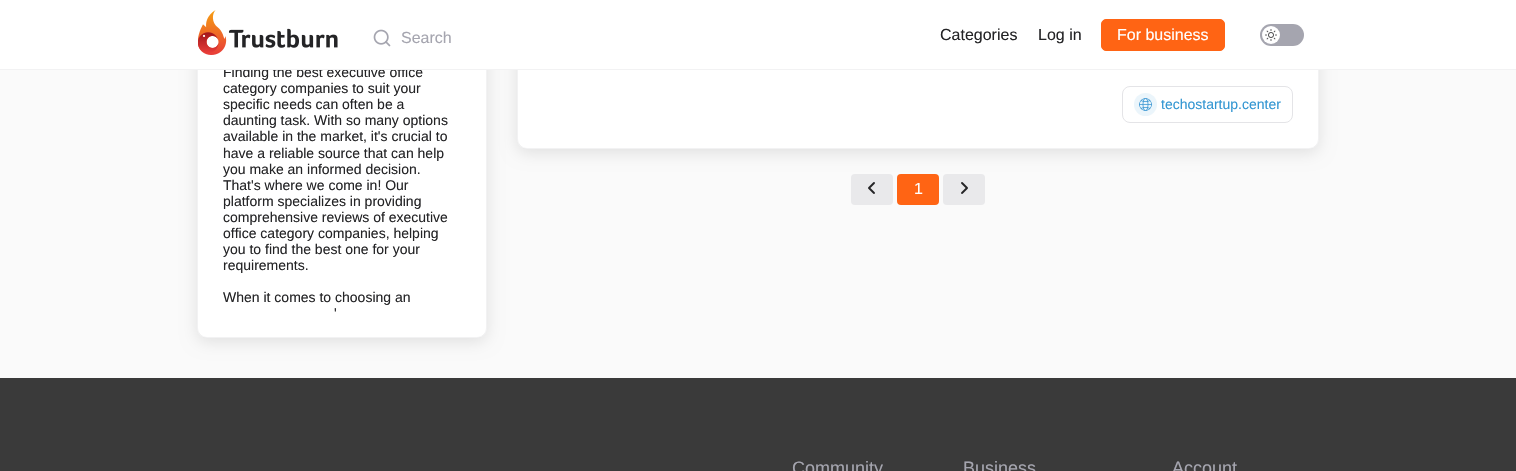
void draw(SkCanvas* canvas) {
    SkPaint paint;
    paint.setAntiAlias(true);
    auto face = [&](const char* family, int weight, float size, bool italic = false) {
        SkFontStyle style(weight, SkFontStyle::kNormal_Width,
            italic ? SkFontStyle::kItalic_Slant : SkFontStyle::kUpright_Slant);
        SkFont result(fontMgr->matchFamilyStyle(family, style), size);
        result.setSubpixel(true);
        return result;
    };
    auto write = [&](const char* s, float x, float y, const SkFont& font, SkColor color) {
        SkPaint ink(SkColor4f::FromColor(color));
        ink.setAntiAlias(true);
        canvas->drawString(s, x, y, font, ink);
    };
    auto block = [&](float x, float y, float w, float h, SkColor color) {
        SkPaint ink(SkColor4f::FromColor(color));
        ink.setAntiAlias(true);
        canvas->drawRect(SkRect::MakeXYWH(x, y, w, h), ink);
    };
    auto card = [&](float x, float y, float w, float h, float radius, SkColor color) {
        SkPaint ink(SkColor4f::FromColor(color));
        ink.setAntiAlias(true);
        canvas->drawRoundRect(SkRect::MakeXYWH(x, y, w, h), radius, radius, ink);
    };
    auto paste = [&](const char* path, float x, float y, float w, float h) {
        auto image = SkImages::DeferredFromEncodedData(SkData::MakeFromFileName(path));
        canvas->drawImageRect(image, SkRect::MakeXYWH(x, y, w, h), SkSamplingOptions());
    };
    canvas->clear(SkColorSetRGB(250, 250, 250));
    paint.setColor(SkColorSetARGB(26, 0, 0, 0));
    paint.setMaskFilter(SkMaskFilter::MakeBlur(kNormal_SkBlurStyle, 8));
    canvas->drawRoundRect(SkRect::MakeXYWH(197, -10, 290, 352), 10, 10, paint);
    paint.setMaskFilter(nullptr);
    card(197, -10, 290, 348, 10, SK_ColorWHITE);
    paint.setStyle(SkPaint::kStroke_Style);
    paint.setStrokeWidth(1);
    paint.setColor(SkColorSetARGB(38, 165, 165, 175));
    canvas->drawRoundRect(SkRect::MakeXYWH(197.5f, -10.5f, 289, 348), 9.5f, 9.5f, paint);
    auto kFont1 = face("Liberation Sans", 400, 14);
    write("Finding the best executive office", 223, 77, kFont1, SkColorSetRGB(36, 36, 38));
    card(851, 174, 42, 31, 4, SkColorSetRGB(233, 233, 235));
    card(897, 174, 42, 31, 4, SkColorSetRGB(255, 100, 20));
    card(943, 174, 42, 31, 4, SkColorSetRGB(233, 233, 235));
    paint.setStyle(SkPaint::kFill_Style);
    paint.setColor(SkColorSetARGB(26, 0, 0, 0));
    paint.setMaskFilter(SkMaskFilter::MakeBlur(kNormal_SkBlurStyle, 8));
    canvas->drawRoundRect(SkRect::MakeXYWH(517, -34, 802, 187), 10, 10, paint);
    paint.setMaskFilter(nullptr);
    card(517, -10, 802, 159, 10, SK_ColorWHITE);
    paint.setStyle(SkPaint::kStroke_Style);
    paint.setColor(SkColorSetARGB(38, 165, 165, 175));
    canvas->drawRoundRect(SkRect::MakeXYWH(517.5f, -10.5f, 801, 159), 9.5f, 9.5f, paint);
    block(0, 0, 1516, 69, SK_ColorWHITE);
    block(0, 69, 1516, 1, SkColorSetRGB(242, 242, 243));
    paste("pic1.png", 198, 10, 140, 45);
    paste("pic2.png", 373, 29, 18, 18);
    auto kFont2 = face("Liberation Sans", 400, 16);
    write("Search", 401, 43, kFont2, SkColorSetRGB(165, 165, 175));
    write("Categories", 940, 40, kFont2, SkColorSetRGB(36, 36, 38));
    write("Log in", 1038, 40, kFont2, SkColorSetRGB(36, 36, 38));
    paint.setStyle(SkPaint::kFill_Style);
    paint.setColor(SkColorSetRGB(255, 100, 20));
    canvas->drawRoundRect(SkRect::MakeXYWH(1101.5f, 19.5f, 123, 31), 4.5f, 4.5f, paint);
    paint.setStyle(SkPaint::kStroke_Style);
    canvas->drawRoundRect(SkRect::MakeXYWH(1101.5f, 19.5f, 123, 31), 4.5f, 4.5f, paint);
    write("For business", 1117, 40, kFont2, SK_ColorWHITE);
    card(1260, 24, 44, 22, 11, SkColorSetRGB(165, 165, 175));
    paint.setStyle(SkPaint::kFill_Style);
    paint.setColor(SK_ColorWHITE);
    canvas->drawCircle(1271, 35, 9, paint);
    paste("pic3.png", 1265, 29, 12, 12);
    write("category companies to suit your", 223, 93, kFont1, SkColorSetRGB(36, 36, 38));
    write("specific needs can often be a", 223, 109, kFont1, SkColorSetRGB(36, 36, 38));
    write("daunting task. With so many options", 223, 125, kFont1, SkColorSetRGB(36, 36, 38));
    write("available in the market, it's crucial to", 223, 141, kFont1, SkColorSetRGB(36, 36, 38));
    write("have a reliable source that can help", 223, 158, kFont1, SkColorSetRGB(36, 36, 38));
    write("you make an informed decision.", 223, 174, kFont1, SkColorSetRGB(36, 36, 38));
    write("That's where we come in! Our", 223, 190, kFont1, SkColorSetRGB(36, 36, 38));
    write("platform specializes in providing", 223, 206, kFont1, SkColorSetRGB(36, 36, 38));
    write("comprehensive reviews of executive", 223, 222, kFont1, SkColorSetRGB(36, 36, 38));
    write("office category companies, helping", 223, 238, kFont1, SkColorSetRGB(36, 36, 38));
    write("you to find the best one for your", 223, 254, kFont1, SkColorSetRGB(36, 36, 38));
    write("requirements.", 223, 270, kFont1, SkColorSetRGB(36, 36, 38));
    write("When it comes to choosing an", 223, 302, kFont1, SkColorSetRGB(36, 36, 38));
    write("'", 334, 318, kFont1, SkColorSetRGB(36, 36, 38));
    paint.setStyle(SkPaint::kStroke_Style);
    paint.setColor(SkColorSetRGB(228, 228, 231));
    canvas->drawRoundRect(SkRect::MakeXYWH(1122.5f, 86.5f, 170, 36), 7.5f, 7.5f, paint);
    paint.setStyle(SkPaint::kFill_Style);
    paint.setColor(SkColorSetRGB(235, 245, 251));
    canvas->drawCircle(1145.5f, 104.5f, 11.5f, paint);
    paste("pic4.png", 1139, 98, 13, 13);
    write("techostartup.center", 1161, 109, kFont1, SkColorSetRGB(50, 150, 210));
    paste("pic5.png", 868, 182, 7, 12);
    write("1", 914, 194, kFont2, SK_ColorWHITE);
    paste("pic6.png", 961, 182, 7, 12);
    block(0, 378, 1516, 93, SkColorSetRGB(58, 58, 58));
    auto kFont3 = face("Liberation Sans", 400, 18);
    write("Community", 792, 474, kFont3, SkColorSetRGB(165, 165, 175));
    write("Business", 963, 474, kFont3, SkColorSetRGB(165, 165, 175));
    write("Account", 1172, 474, kFont3, SkColorSetRGB(165, 165, 175));
}
